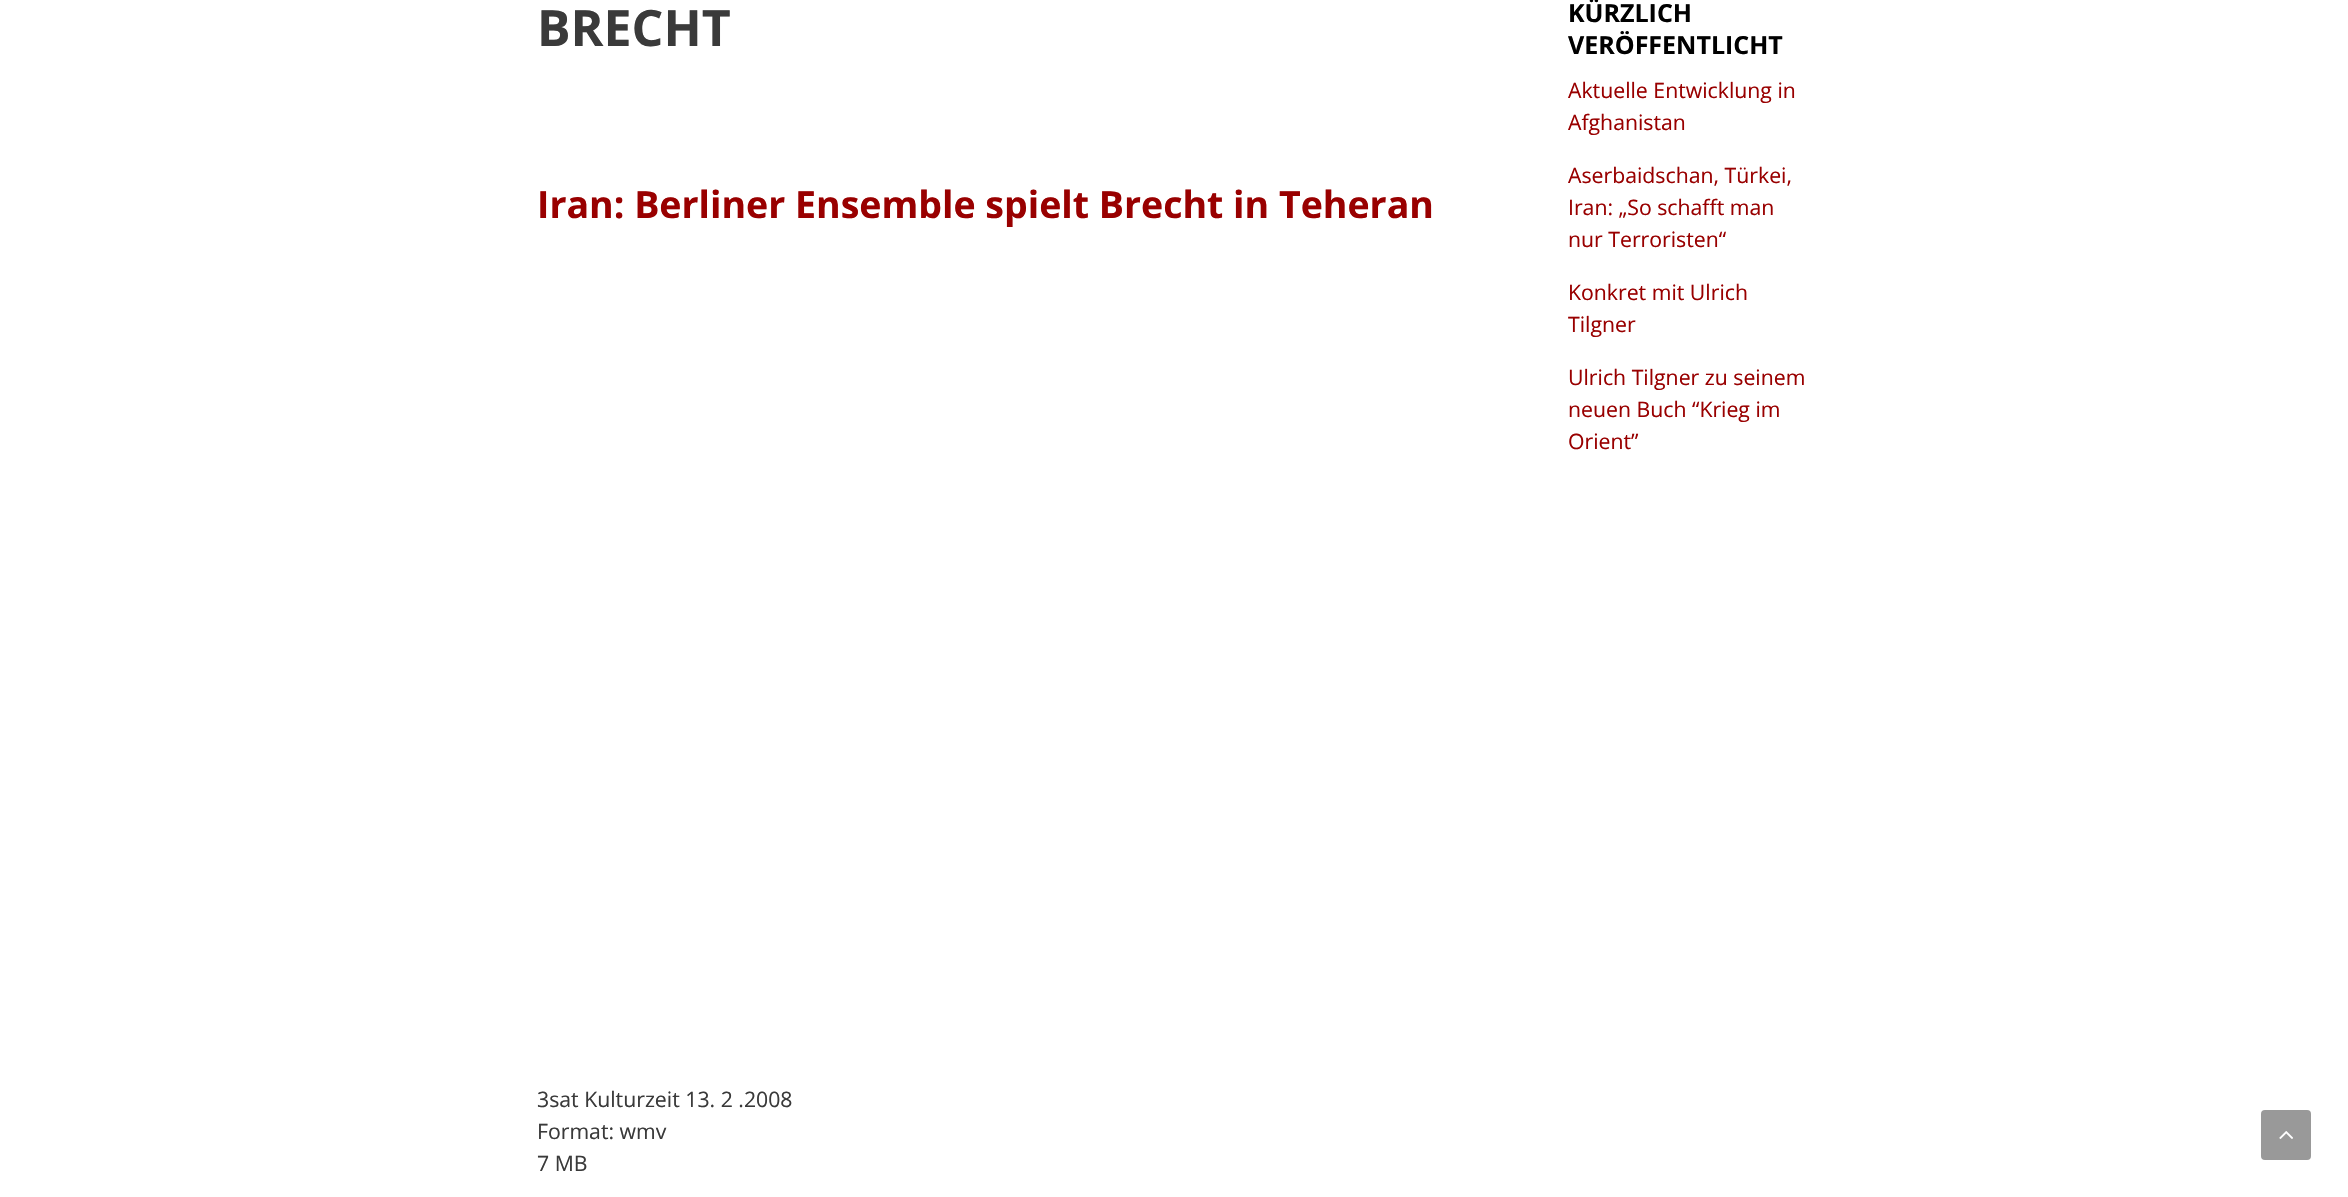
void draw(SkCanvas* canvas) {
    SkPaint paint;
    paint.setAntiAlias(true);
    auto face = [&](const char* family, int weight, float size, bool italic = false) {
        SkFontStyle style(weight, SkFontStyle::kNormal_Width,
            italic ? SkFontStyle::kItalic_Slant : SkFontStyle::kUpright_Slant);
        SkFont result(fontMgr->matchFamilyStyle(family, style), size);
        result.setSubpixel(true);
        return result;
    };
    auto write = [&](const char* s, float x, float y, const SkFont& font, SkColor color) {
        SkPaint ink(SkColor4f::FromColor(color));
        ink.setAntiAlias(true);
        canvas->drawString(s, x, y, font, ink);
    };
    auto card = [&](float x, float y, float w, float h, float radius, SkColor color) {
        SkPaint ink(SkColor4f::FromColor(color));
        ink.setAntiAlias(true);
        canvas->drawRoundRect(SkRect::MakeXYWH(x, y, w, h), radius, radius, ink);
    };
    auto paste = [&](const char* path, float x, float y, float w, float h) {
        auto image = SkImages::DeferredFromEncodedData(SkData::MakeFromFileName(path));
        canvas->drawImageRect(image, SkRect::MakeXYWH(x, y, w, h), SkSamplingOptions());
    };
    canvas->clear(SK_ColorWHITE);
    auto kFont1 = face("Open Sans", 700, 50);
    write("BRECHT", 537, 46, kFont1, SkColorSetRGB(58, 58, 58));
    auto kFont2 = face("Open Sans", 700, 37.5f);
    write("Iran: Berliner Ensemble spielt Brecht in Teheran", 537, 218, kFont2, SkColorSetRGB(153, 0, 0));
    auto kFont3 = face("Open Sans", 400, 21.25f);
    write("3sat Kulturzeit 13. 2 .2008", 537, 1107, kFont3, SkColorSetRGB(58, 58, 58));
    write("Format: wmv", 537, 1139, kFont3, SkColorSetRGB(58, 58, 58));
    write("7 MB", 537, 1171, kFont3, SkColorSetRGB(58, 58, 58));
    auto kFont4 = face("Open Sans", 700, 25);
    write("KÜRZLICH", 1568, 22, kFont4, SK_ColorBLACK);
    write("VERÖFFENTLICHT", 1568, 54, kFont4, SK_ColorBLACK);
    write("Aktuelle Entwicklung in", 1568, 98, kFont3, SkColorSetRGB(153, 0, 0));
    write("Afghanistan", 1568, 130, kFont3, SkColorSetRGB(153, 0, 0));
    write("Aserbaidschan, Türkei,", 1568, 183, kFont3, SkColorSetRGB(153, 0, 0));
    write("Iran: „So schafft man", 1568, 215, kFont3, SkColorSetRGB(153, 0, 0));
    write("nur Terroristen“", 1568, 247, kFont3, SkColorSetRGB(153, 0, 0));
    write("Konkret mit Ulrich", 1568, 300, kFont3, SkColorSetRGB(153, 0, 0));
    write("Tilgner", 1568, 332, kFont3, SkColorSetRGB(153, 0, 0));
    write("Ulrich Tilgner zu seinem", 1568, 385, kFont3, SkColorSetRGB(153, 0, 0));
    write("neuen Buch “Krieg im", 1568, 417, kFont3, SkColorSetRGB(153, 0, 0));
    write("Orient”", 1568, 449, kFont3, SkColorSetRGB(153, 0, 0));
    card(2261, 1110, 50, 50, 4, SkColorSetRGB(153, 153, 153));
    paste("pic1.png", 2279, 1131, 14, 8);
}
